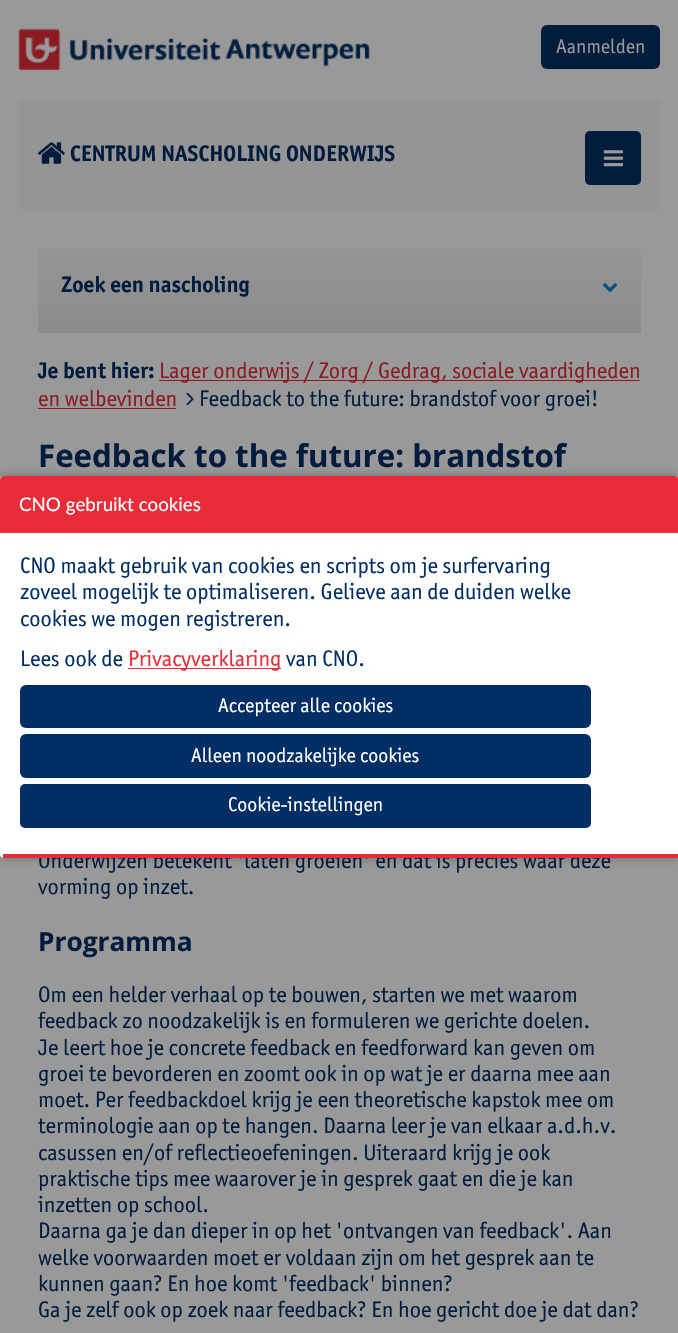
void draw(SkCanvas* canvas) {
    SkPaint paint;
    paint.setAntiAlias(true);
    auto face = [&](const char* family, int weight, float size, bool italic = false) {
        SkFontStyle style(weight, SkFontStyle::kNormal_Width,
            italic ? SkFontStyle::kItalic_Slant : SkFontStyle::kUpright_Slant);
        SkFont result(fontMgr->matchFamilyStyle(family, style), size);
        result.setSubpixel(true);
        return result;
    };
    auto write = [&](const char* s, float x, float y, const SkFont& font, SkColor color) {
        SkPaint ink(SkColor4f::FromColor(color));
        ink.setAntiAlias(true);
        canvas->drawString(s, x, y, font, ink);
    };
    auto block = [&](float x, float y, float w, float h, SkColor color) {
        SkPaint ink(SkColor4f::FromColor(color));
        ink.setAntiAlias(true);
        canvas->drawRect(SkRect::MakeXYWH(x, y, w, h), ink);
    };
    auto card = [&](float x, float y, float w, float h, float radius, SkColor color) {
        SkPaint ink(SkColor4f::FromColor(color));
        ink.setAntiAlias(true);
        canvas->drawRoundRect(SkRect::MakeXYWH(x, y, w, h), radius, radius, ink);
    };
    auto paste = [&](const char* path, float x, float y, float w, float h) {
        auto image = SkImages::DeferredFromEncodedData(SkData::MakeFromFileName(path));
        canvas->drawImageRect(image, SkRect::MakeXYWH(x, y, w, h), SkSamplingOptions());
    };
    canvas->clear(SkColorSetRGB(153, 153, 153));
    paste("pic1.png", 18, 28, 352, 42);
    card(541, 25, 119, 44, 6, SkColorSetRGB(0, 28, 61));
    auto kFont1 = face("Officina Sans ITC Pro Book", 400, 20);
    write("Aanmelden", 556, 53, kFont1, SkColorSetRGB(153, 153, 153));
    block(19, 100, 641, 110, SkColorSetRGB(149, 149, 149));
    paste("pic2.png", 38, 142, 27, 22);
    auto kFont2 = face("Officina Sans ITC Pro Book", 700, 22.5f);
    write("CENTRUM NASCHOLING ONDERWIJS", 70, 161, kFont2, SkColorSetRGB(0, 28, 61));
    card(585, 131, 56, 54, 5, SkColorSetRGB(0, 28, 61));
    paste("pic3.png", 603, 150, 21, 17);
    {
        const SkColor colors[] = {SkColorSetRGB(149, 149, 149), SkColorSetRGB(140, 140, 140)};
        const float stops[] = {0, 1};
        const SkPoint ends[] = {{339, 247}, {339, 333}};
        paint.setShader(SkGradientShader::MakeLinear(ends, colors, stops, 2, SkTileMode::kClamp));
        paint.setAlpha(255);
    }
    canvas->drawRect(SkRect::MakeXYWH(38, 248, 603, 85), paint);
    write("Zoek een nascholing", 61, 292, kFont2, SkColorSetRGB(0, 28, 61));
    paste("pic4.png", 603, 283, 15, 9);
    write("Je bent hier:", 38, 378, kFont2, SkColorSetRGB(0, 28, 61));
    block(159, 380, 481, 1, SkColorSetRGB(140, 26, 34));
    auto kFont3 = face("Officina Sans ITC Pro Book", 400, 22.5f);
    write("Lager onderwijs / Zorg / Gedrag, sociale vaardigheden", 159, 378, kFont3, SkColorSetRGB(140, 26, 34));
    write("en welbevinden", 38, 406, kFont3, SkColorSetRGB(140, 26, 34));
    block(38, 408, 138, 1, SkColorSetRGB(140, 26, 34));
    paste("pic5.png", 186, 392, 8, 14);
    write("Feedback to the future: brandstof voor groei!", 199, 406, kFont3, SkColorSetRGB(0, 28, 61));
    auto kFont4 = face("Open Sans", 700, 31.25f);
    write("Feedback to the future: brandstof", 38, 467, kFont4, SkColorSetRGB(0, 28, 61));
    write("Onderwijzen betekent 'laten groeien' en dat is precies waar deze", 38, 868, kFont3, SkColorSetRGB(0, 28, 61));
    write("vorming op inzet.", 38, 894, kFont3, SkColorSetRGB(0, 28, 61));
    auto kFont5 = face("Open Sans", 700, 26.25f);
    write("Programma", 38, 951, kFont5, SkColorSetRGB(0, 28, 61));
    write("Om een helder verhaal op te bouwen, starten we met waarom", 38, 1002, kFont3, SkColorSetRGB(0, 28, 61));
    write("feedback zo noodzakelijk is en formuleren we gerichte doelen.", 38, 1028, kFont3, SkColorSetRGB(0, 28, 61));
    write("Je leert hoe je concrete feedback en feedforward kan geven om", 38, 1055, kFont3, SkColorSetRGB(0, 28, 61));
    write("groei te bevorderen en zoomt ook in op wat je er daarna mee aan", 38, 1081, kFont3, SkColorSetRGB(0, 28, 61));
    write("moet. Per feedbackdoel krijg je een theoretische kapstok mee om", 38, 1107, kFont3, SkColorSetRGB(0, 28, 61));
    write("terminologie aan op te hangen. Daarna leer je van elkaar a.d.h.v.", 38, 1133, kFont3, SkColorSetRGB(0, 28, 61));
    write("casussen en/of reflectieoefeningen. Uiteraard krijg je ook", 38, 1160, kFont3, SkColorSetRGB(0, 28, 61));
    write("praktische tips mee waarover je in gesprek gaat en die je kan", 38, 1186, kFont3, SkColorSetRGB(0, 28, 61));
    write("inzetten op school.", 38, 1212, kFont3, SkColorSetRGB(0, 28, 61));
    write("Daarna ga je dan dieper in op het 'ontvangen van feedback'. Aan", 38, 1238, kFont3, SkColorSetRGB(0, 28, 61));
    write("welke voorwaarden moet er voldaan zijn om het gesprek aan te", 38, 1265, kFont3, SkColorSetRGB(0, 28, 61));
    write("kunnen gaan? En hoe komt 'feedback' binnen?", 38, 1291, kFont3, SkColorSetRGB(0, 28, 61));
    write("Ga je zelf ook op zoek naar feedback? En hoe gericht doe je dat dan?", 38, 1317, kFont3, SkColorSetRGB(0, 28, 61));
    paint.setShader(nullptr);
    paint.setColor(SkColorSetARGB(77, 0, 0, 0));
    paint.setMaskFilter(SkMaskFilter::MakeBlur(kNormal_SkBlurStyle, 5));
    canvas->drawRoundRect(SkRect::MakeXYWH(0, 476, 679, 382), 4, 4, paint);
    paint.setMaskFilter(nullptr);
    card(0, 476, 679, 382, 4, SK_ColorWHITE);
    block(3, 854, 675, 4, SkColorSetRGB(234, 44, 56));
    paint.setColor(SkColorSetRGB(234, 44, 56));
    canvas->drawPath(SkPathBuilder().moveTo(4, 476).cubicTo(2, 476, 0, 478, 0, 480).lineTo(0, 533).lineTo(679, 533).lineTo(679, 480).cubicTo(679, 478, 677, 476, 675, 476).close().detach(), paint);
    auto kFont6 = face("Lato", 400, 18.75f);
    write("CNO gebruikt cookies", 19, 511, kFont6, SK_ColorWHITE);
    write("CNO maakt gebruik van cookies en scripts om je surfervaring", 20, 573, kFont3, SkColorSetRGB(0, 46, 101));
    write("zoveel mogelijk te optimaliseren. Gelieve aan de duiden welke", 20, 599, kFont3, SkColorSetRGB(0, 46, 101));
    write("cookies we mogen registreren.", 20, 626, kFont3, SkColorSetRGB(0, 46, 101));
    write("Lees ook de", 20, 666, kFont3, SkColorSetRGB(0, 46, 101));
    block(128, 668, 153, 1, SkColorSetRGB(234, 44, 56));
    write("Privacyverklaring", 128, 666, kFont3, SkColorSetRGB(234, 44, 56));
    write("van CNO.", 286, 666, kFont3, SkColorSetRGB(0, 46, 101));
    card(20, 685, 571, 43, 6, SkColorSetRGB(0, 46, 101));
    write("Accepteer alle cookies", 218, 712, kFont1, SK_ColorWHITE);
    card(20, 734, 571, 44, 6, SkColorSetRGB(0, 46, 101));
    write("Alleen noodzakelijke cookies", 191, 762, kFont1, SK_ColorWHITE);
    card(20, 784, 571, 44, 5, SkColorSetRGB(0, 46, 101));
    write("Cookie-instellingen", 228, 811, kFont1, SK_ColorWHITE);
}
